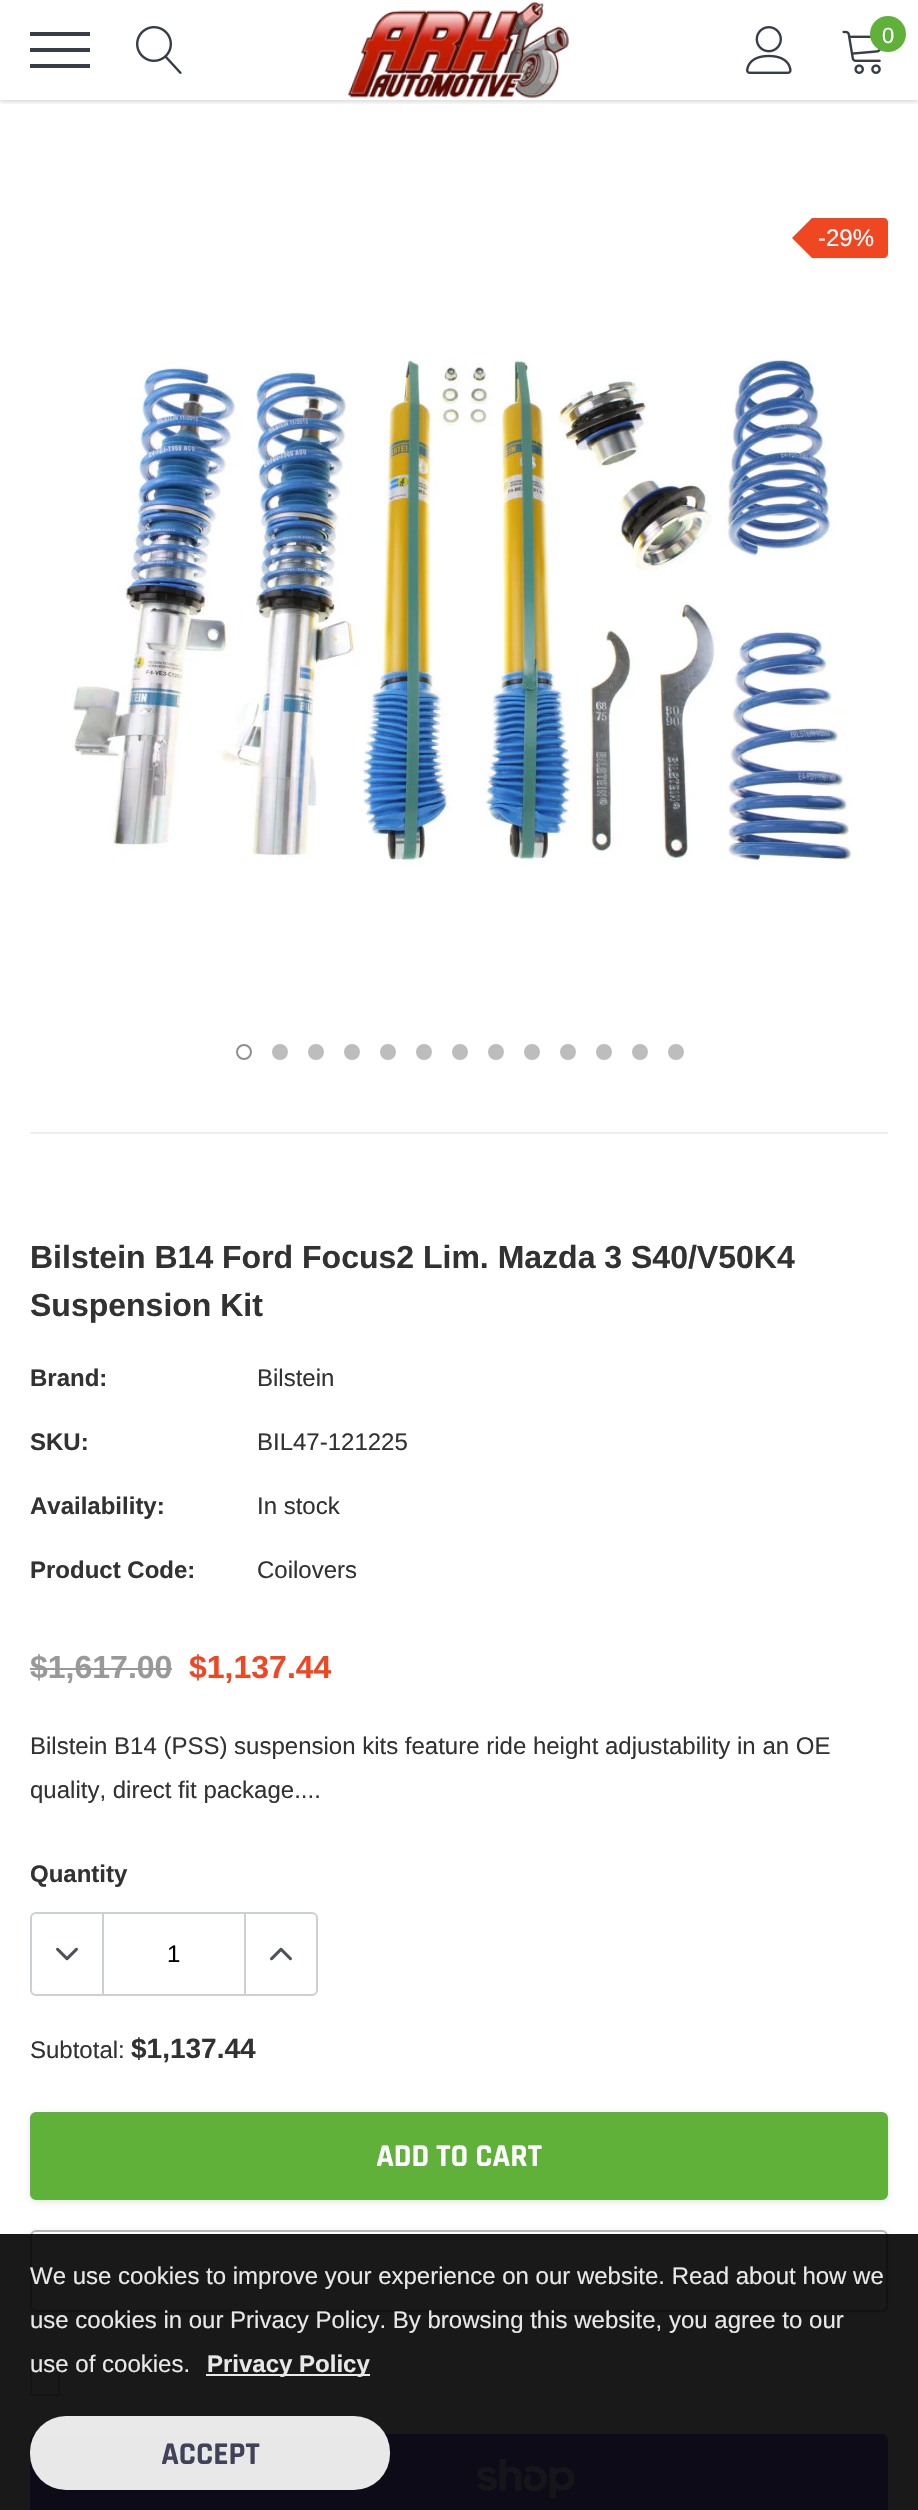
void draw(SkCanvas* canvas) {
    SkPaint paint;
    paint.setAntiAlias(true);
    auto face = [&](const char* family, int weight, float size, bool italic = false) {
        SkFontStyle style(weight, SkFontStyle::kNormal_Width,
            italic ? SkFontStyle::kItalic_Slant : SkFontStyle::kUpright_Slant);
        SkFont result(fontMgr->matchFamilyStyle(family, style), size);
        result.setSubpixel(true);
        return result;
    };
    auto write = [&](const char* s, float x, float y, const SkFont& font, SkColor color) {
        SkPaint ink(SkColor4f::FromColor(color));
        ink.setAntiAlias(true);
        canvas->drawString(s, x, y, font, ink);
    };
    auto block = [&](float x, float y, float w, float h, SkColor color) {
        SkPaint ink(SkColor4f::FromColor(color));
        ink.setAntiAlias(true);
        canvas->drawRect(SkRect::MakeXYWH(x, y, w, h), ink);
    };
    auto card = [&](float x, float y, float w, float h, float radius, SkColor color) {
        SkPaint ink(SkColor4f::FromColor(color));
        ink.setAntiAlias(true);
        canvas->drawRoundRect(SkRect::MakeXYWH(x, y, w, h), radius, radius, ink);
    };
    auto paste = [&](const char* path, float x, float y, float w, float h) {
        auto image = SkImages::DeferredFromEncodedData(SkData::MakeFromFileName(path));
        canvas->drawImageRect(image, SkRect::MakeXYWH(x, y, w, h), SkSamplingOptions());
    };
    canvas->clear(SK_ColorWHITE);
    canvas->save();
    canvas->clipRect(SkRect::MakeXYWH(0, 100, 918, 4));
    paint.setColor(SkColorSetARGB(38, 0, 0, 0));
    paint.setMaskFilter(SkMaskFilter::MakeBlur(kNormal_SkBlurStyle, 2));
    canvas->drawRect(SkRect::MakeXYWH(0, 2, 918, 100), paint);
    paint.setMaskFilter(nullptr);
    canvas->restore();
    block(30, 48, 60, 4, SkColorSetRGB(56, 62, 71));
    block(30, 32, 60, 4, SkColorSetRGB(56, 62, 71));
    block(30, 64, 60, 4, SkColorSetRGB(56, 62, 71));
    paste("pic1.png", 136, 26, 46, 48);
    paste("pic2.png", 347, 2, 222, 96);
    paste("pic3.png", 746, 26, 46, 48);
    paste("pic4.png", 842, 30, 39, 44);
    paint.setColor(SkColorSetRGB(95, 177, 57));
    canvas->drawCircle(888, 34, 18, paint);
    auto kFont1 = face("Arimo", 400, 22);
    write("0", 882, 43, kFont1, SK_ColorWHITE);
    paint.setColor(SkColorSetRGB(240, 71, 35));
    canvas->drawPath(SkPathBuilder().moveTo(812, 218).lineTo(884, 218).cubicTo(886, 218, 888, 220, 888, 222).lineTo(888, 254).cubicTo(888, 256, 886, 258, 884, 258).lineTo(812, 258).close().detach(), paint);
    canvas->drawPath(SkPathBuilder().moveTo(812, 218).lineTo(812, 258).lineTo(792, 238).close().detach(), paint);
    auto kFont2 = face("Arimo", 400, 24);
    write("-29%", 818, 246, kFont2, SK_ColorWHITE);
    paste("pic5.png", 72, 358, 781, 508);
    paint.setStyle(SkPaint::kStroke_Style);
    paint.setStrokeWidth(2);
    paint.setColor(SkColorSetRGB(143, 143, 143));
    canvas->drawCircle(244, 1052, 7, paint);
    paint.setStyle(SkPaint::kFill_Style);
    paint.setColor(SkColorSetRGB(189, 189, 189));
    canvas->drawCircle(280, 1052, 7, paint);
    paint.setStyle(SkPaint::kStroke_Style);
    canvas->drawCircle(280, 1052, 7, paint);
    paint.setStyle(SkPaint::kFill_Style);
    canvas->drawCircle(316, 1052, 7, paint);
    paint.setStyle(SkPaint::kStroke_Style);
    canvas->drawCircle(316, 1052, 7, paint);
    paint.setStyle(SkPaint::kFill_Style);
    canvas->drawCircle(352, 1052, 7, paint);
    paint.setStyle(SkPaint::kStroke_Style);
    canvas->drawCircle(352, 1052, 7, paint);
    paint.setStyle(SkPaint::kFill_Style);
    canvas->drawCircle(388, 1052, 7, paint);
    paint.setStyle(SkPaint::kStroke_Style);
    canvas->drawCircle(388, 1052, 7, paint);
    paint.setStyle(SkPaint::kFill_Style);
    canvas->drawCircle(424, 1052, 7, paint);
    paint.setStyle(SkPaint::kStroke_Style);
    canvas->drawCircle(424, 1052, 7, paint);
    paint.setStyle(SkPaint::kFill_Style);
    canvas->drawCircle(460, 1052, 7, paint);
    paint.setStyle(SkPaint::kStroke_Style);
    canvas->drawCircle(460, 1052, 7, paint);
    paint.setStyle(SkPaint::kFill_Style);
    canvas->drawCircle(496, 1052, 7, paint);
    paint.setStyle(SkPaint::kStroke_Style);
    canvas->drawCircle(496, 1052, 7, paint);
    paint.setStyle(SkPaint::kFill_Style);
    canvas->drawCircle(532, 1052, 7, paint);
    paint.setStyle(SkPaint::kStroke_Style);
    canvas->drawCircle(532, 1052, 7, paint);
    paint.setStyle(SkPaint::kFill_Style);
    canvas->drawCircle(568, 1052, 7, paint);
    paint.setStyle(SkPaint::kStroke_Style);
    canvas->drawCircle(568, 1052, 7, paint);
    paint.setStyle(SkPaint::kFill_Style);
    canvas->drawCircle(604, 1052, 7, paint);
    paint.setStyle(SkPaint::kStroke_Style);
    canvas->drawCircle(604, 1052, 7, paint);
    paint.setStyle(SkPaint::kFill_Style);
    canvas->drawCircle(640, 1052, 7, paint);
    paint.setStyle(SkPaint::kStroke_Style);
    canvas->drawCircle(640, 1052, 7, paint);
    paint.setStyle(SkPaint::kFill_Style);
    canvas->drawCircle(676, 1052, 7, paint);
    paint.setStyle(SkPaint::kStroke_Style);
    canvas->drawCircle(676, 1052, 7, paint);
    block(30, 1132, 858, 2, SkColorSetRGB(238, 238, 238));
    auto kFont3 = face("Arimo", 700, 32);
    write("Bilstein B14 Ford Focus2 Lim. Mazda 3 S40/V50K4", 30, 1268, kFont3, SkColorSetRGB(50, 50, 50));
    write("Suspension Kit", 30, 1316, kFont3, SkColorSetRGB(50, 50, 50));
    auto kFont4 = face("Arimo", 700, 24);
    write("Brand:", 30, 1386, kFont4, SkColorSetRGB(50, 50, 50));
    write("Bilstein", 257, 1386, kFont2, SkColorSetRGB(50, 50, 50));
    write("SKU:", 30, 1450, kFont4, SkColorSetRGB(50, 50, 50));
    write("BIL47-121225", 257, 1450, kFont2, SkColorSetRGB(50, 50, 50));
    write("Availability:", 30, 1514, kFont4, SkColorSetRGB(50, 50, 50));
    write("In stock", 257, 1514, kFont2, SkColorSetRGB(50, 50, 50));
    write("Product Code:", 30, 1578, kFont4, SkColorSetRGB(50, 50, 50));
    write("Coilovers", 257, 1578, kFont2, SkColorSetRGB(50, 50, 50));
    write("$1,617.00", 30, 1678, kFont3, SkColorSetRGB(153, 153, 153));
    block(30, 1668, 142, 2, SkColorSetRGB(153, 153, 153));
    write("$1,137.44", 189, 1678, kFont3, SkColorSetRGB(240, 71, 35));
    write("Bilstein B14 (PSS) suspension kits feature ride height adjustability in an OE", 30, 1754, kFont2, SkColorSetRGB(50, 50, 50));
    write("quality, direct fit package....", 30, 1798, kFont2, SkColorSetRGB(50, 50, 50));
    write("Quantity", 30, 1882, kFont4, SkColorSetRGB(50, 50, 50));
    paint.setColor(SkColorSetRGB(204, 207, 214));
    canvas->drawRoundRect(SkRect::MakeXYWH(31, 1913, 286, 82), 5, 5, paint);
    block(102, 1914, 2, 80, SkColorSetRGB(204, 207, 214));
    paste("pic6.png", 56, 1947, 22, 14);
    write("1", 167, 1962, kFont2, SK_ColorBLACK);
    block(244, 1914, 2, 80, SkColorSetRGB(204, 207, 214));
    paste("pic7.png", 270, 1947, 22, 14);
    write("Subtotal:", 30, 2058, kFont2, SkColorSetRGB(50, 50, 50));
    auto kFont5 = face("Arimo", 700, 28);
    write("$1,137.44", 131, 2058, kFont5, SkColorSetRGB(50, 50, 50));
    paint.setStyle(SkPaint::kFill_Style);
    paint.setColor(SkColorSetARGB(26, 0, 0, 0));
    paint.setMaskFilter(SkMaskFilter::MakeBlur(kNormal_SkBlurStyle, 3));
    canvas->drawRoundRect(SkRect::MakeXYWH(30, 2114, 858, 88), 6, 6, paint);
    paint.setMaskFilter(nullptr);
    paint.setColor(SkColorSetRGB(95, 177, 57));
    canvas->drawRoundRect(SkRect::MakeXYWH(31, 2113, 856, 86), 5, 5, paint);
    paint.setStyle(SkPaint::kStroke_Style);
    canvas->drawRoundRect(SkRect::MakeXYWH(31, 2113, 856, 86), 5, 5, paint);
    auto kFont6 = face("Rajdhani", 700, 32);
    write("ADD TO CART", 376, 2166, kFont6, SK_ColorWHITE);
    canvas->save();
    canvas->clipPath(SkPathBuilder(SkPathFillType::kEvenOdd).moveTo(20, 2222).lineTo(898, 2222).lineTo(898, 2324).lineTo(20, 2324).close().moveTo(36, 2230).lineTo(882, 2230).cubicTo(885.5f, 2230, 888, 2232.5f, 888, 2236).lineTo(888, 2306).cubicTo(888, 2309.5f, 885.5f, 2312, 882, 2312).lineTo(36, 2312).cubicTo(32.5f, 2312, 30, 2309.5f, 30, 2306).lineTo(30, 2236).cubicTo(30, 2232.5f, 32.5f, 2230, 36, 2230).close().detach(), true);
    paint.setStyle(SkPaint::kFill_Style);
    paint.setColor(SkColorSetARGB(26, 0, 0, 0));
    paint.setMaskFilter(SkMaskFilter::MakeBlur(kNormal_SkBlurStyle, 3));
    canvas->drawRoundRect(SkRect::MakeXYWH(30, 2232, 858, 82), 6, 6, paint);
    paint.setMaskFilter(nullptr);
    canvas->restore();
    paint.setStyle(SkPaint::kStroke_Style);
    paint.setColor(SkColorSetRGB(182, 182, 182));
    canvas->drawRoundRect(SkRect::MakeXYWH(31, 2231, 856, 80), 5, 5, paint);
    paint.setColor(SkColorSetRGB(204, 204, 204));
    canvas->drawRect(SkRect::MakeXYWH(31, 2367, 28, 28), paint);
    card(30, 2434, 858, 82, 6, SkColorSetRGB(135, 112, 241));
    paste("pic8.png", 477, 2459, 98, 39);
    block(0, 2234, 918, 276, SkColorSetARGB(230, 0, 0, 0));
    write("We use cookies to improve your experience on our website. Read about how we", 30, 2284, kFont2, SkColorSetRGB(232, 232, 232));
    write("use cookies in our Privacy Policy. By browsing this website, you agree to our", 30, 2328, kFont2, SkColorSetRGB(232, 232, 232));
    write("use of cookies.", 30, 2372, kFont2, SkColorSetRGB(232, 232, 232));
    block(206, 2374, 164, 2, SkColorSetARGB(230, 255, 255, 255));
    write("Privacy Policy", 207, 2372, kFont4, SkColorSetRGB(232, 232, 232));
    card(30, 2416, 360, 74, 36, SkColorSetARGB(230, 255, 255, 255));
    write("ACCEPT", 161, 2464, kFont6, SkColorSetRGB(64, 67, 88));
}
